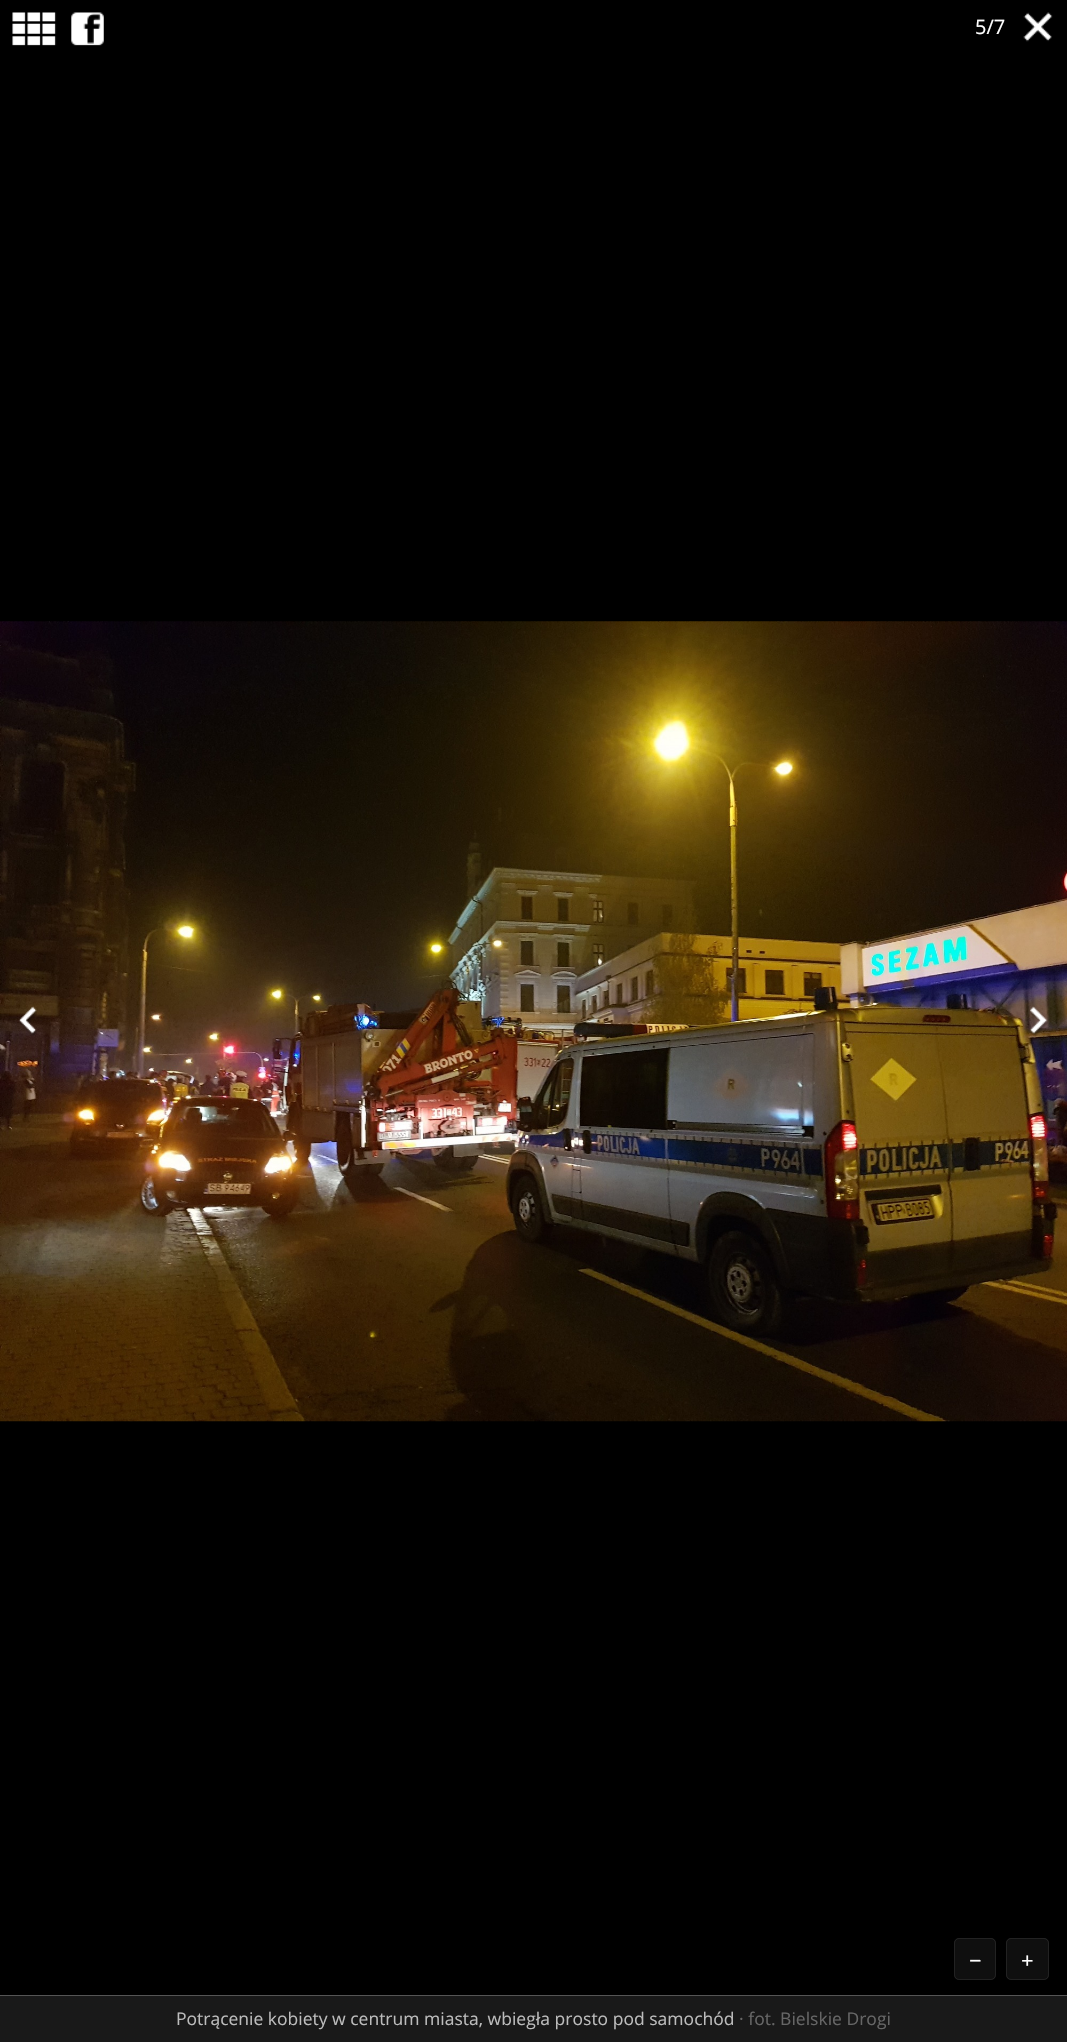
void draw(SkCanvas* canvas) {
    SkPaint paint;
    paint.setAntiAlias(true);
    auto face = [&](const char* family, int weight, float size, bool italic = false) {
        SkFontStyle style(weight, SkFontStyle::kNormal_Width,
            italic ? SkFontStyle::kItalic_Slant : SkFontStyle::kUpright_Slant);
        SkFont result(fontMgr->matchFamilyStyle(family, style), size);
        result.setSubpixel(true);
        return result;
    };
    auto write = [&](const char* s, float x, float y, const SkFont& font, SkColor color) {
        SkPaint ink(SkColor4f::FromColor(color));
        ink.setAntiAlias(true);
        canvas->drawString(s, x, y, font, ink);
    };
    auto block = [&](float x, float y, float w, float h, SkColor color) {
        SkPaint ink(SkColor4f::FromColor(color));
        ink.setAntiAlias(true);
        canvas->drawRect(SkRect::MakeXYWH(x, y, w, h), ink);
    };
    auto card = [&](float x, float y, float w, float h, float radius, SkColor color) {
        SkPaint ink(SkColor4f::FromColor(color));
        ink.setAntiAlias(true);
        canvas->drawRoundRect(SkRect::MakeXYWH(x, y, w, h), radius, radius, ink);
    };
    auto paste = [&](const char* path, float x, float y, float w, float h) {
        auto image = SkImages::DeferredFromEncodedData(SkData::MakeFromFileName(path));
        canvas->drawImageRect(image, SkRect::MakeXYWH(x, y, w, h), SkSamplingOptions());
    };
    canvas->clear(SK_ColorBLACK);
    auto kFont1 = face("Open Sans", 400, 20);
    write("5/7", 975, 34, kFont1, SK_ColorWHITE);
    paste("pic1.png", 1023, 12, 30, 30);
    paste("pic2.png", 0, 621, 1067, 801);
    paste("pic3.png", 18, 1006, 19, 30);
    paste("pic4.png", 1030, 1006, 18, 30);
    paste("pic5.png", 12, 12, 45, 34);
    paste("pic6.png", 71, 12, 33, 34);
    card(954, 1938, 42, 42, 5, SkColorSetRGB(15, 15, 15));
    paint.setStyle(SkPaint::kStroke_Style);
    paint.setStrokeWidth(1);
    paint.setColor(SkColorSetARGB(20, 255, 255, 255));
    canvas->drawRoundRect(SkRect::MakeXYWH(954.5f, 1938.5f, 41, 41), 4.5f, 4.5f, paint);
    auto kFont2 = face("Liberation Serif", 700, 22);
    write("−", 969, 1968, kFont2, SK_ColorWHITE);
    card(1006, 1938, 43, 42, 5, SkColorSetRGB(15, 15, 15));
    canvas->drawRoundRect(SkRect::MakeXYWH(1006.5f, 1938.5f, 42, 41), 4.5f, 4.5f, paint);
    write("+", 1021, 1968, kFont2, SK_ColorWHITE);
    block(0, 1996, 1067, 46, SkColorSetRGB(25, 25, 25));
    block(0, 1995, 1067, 1, SkColorSetRGB(85, 85, 85));
    auto kFont3 = face("Open Sans", 400, 17.5f);
    write("Potrącenie kobiety w centrum miasta, wbiegła prosto pod samochód", 176, 2025, kFont3, SkColorSetRGB(188, 188, 188));
    write("· fot. Bielskie Drogi", 739, 2025, kFont3, SkColorSetRGB(102, 102, 102));
}
